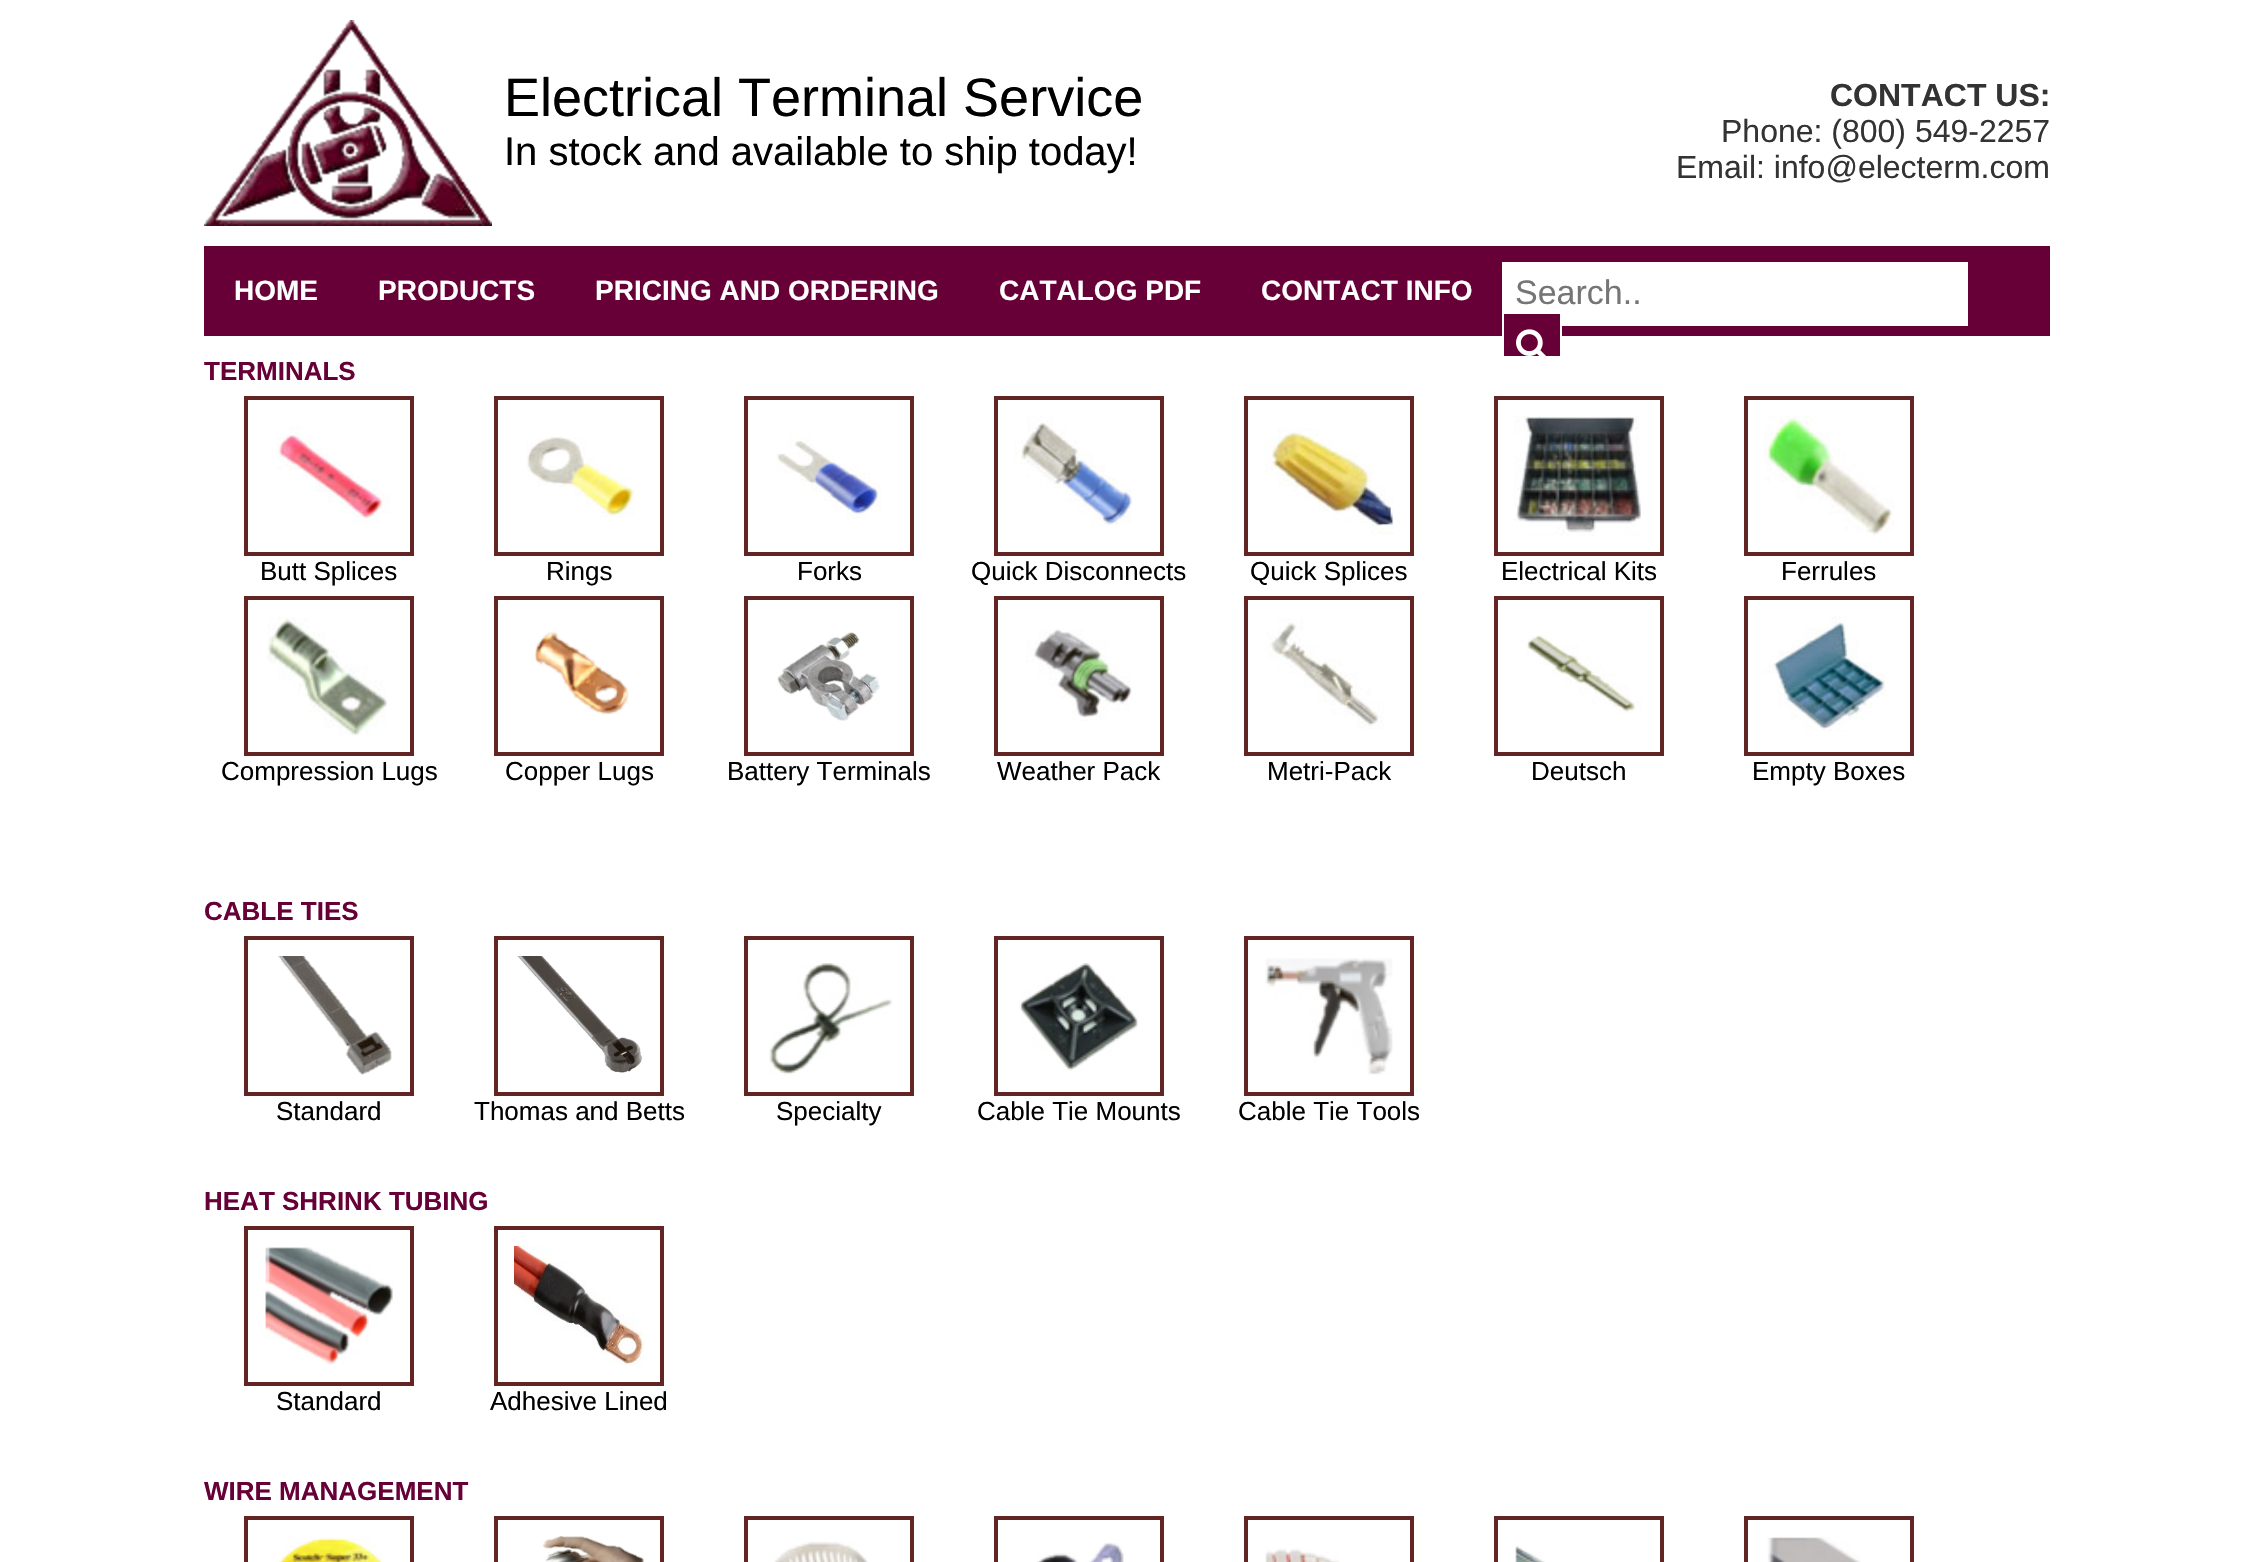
void draw(SkCanvas* canvas) {
    SkPaint paint;
    paint.setAntiAlias(true);
    auto face = [&](const char* family, int weight, float size, bool italic = false) {
        SkFontStyle style(weight, SkFontStyle::kNormal_Width,
            italic ? SkFontStyle::kItalic_Slant : SkFontStyle::kUpright_Slant);
        SkFont result(fontMgr->matchFamilyStyle(family, style), size);
        result.setSubpixel(true);
        return result;
    };
    auto write = [&](const char* s, float x, float y, const SkFont& font, SkColor color) {
        SkPaint ink(SkColor4f::FromColor(color));
        ink.setAntiAlias(true);
        canvas->drawString(s, x, y, font, ink);
    };
    auto block = [&](float x, float y, float w, float h, SkColor color) {
        SkPaint ink(SkColor4f::FromColor(color));
        ink.setAntiAlias(true);
        canvas->drawRect(SkRect::MakeXYWH(x, y, w, h), ink);
    };
    auto paste = [&](const char* path, float x, float y, float w, float h) {
        auto image = SkImages::DeferredFromEncodedData(SkData::MakeFromFileName(path));
        canvas->drawImageRect(image, SkRect::MakeXYWH(x, y, w, h), SkSamplingOptions());
    };
    canvas->clear(SK_ColorWHITE);
    paste("pic1.png", 204, 20, 288, 206);
    auto kFont1 = face("Liberation Sans", 400, 54);
    write("Electrical Terminal Service", 504, 116, kFont1, SK_ColorBLACK);
    auto kFont2 = face("Liberation Sans", 400, 40);
    write("In stock and available to ship today!", 504, 165, kFont2, SK_ColorBLACK);
    auto kFont3 = face("Liberation Sans", 700, 32);
    write("CONTACT US:", 1830, 106, kFont3, SkColorSetRGB(51, 51, 51));
    auto kFont4 = face("Liberation Sans", 400, 32);
    write("Phone: (800) 549-2257", 1721, 142, kFont4, SkColorSetRGB(51, 51, 51));
    write("Email: info@electerm.com", 1676, 178, kFont4, SkColorSetRGB(51, 51, 51));
    block(204, 246, 1846, 90, SkColorSetRGB(102, 0, 54));
    auto kFont5 = face("Liberation Sans", 700, 28);
    write("HOME", 234, 300, kFont5, SK_ColorWHITE);
    write("PRODUCTS", 378, 300, kFont5, SK_ColorWHITE);
    write("PRICING AND ORDERING", 595, 300, kFont5, SK_ColorWHITE);
    write("CATALOG PDF", 999, 300, kFont5, SK_ColorWHITE);
    write("CONTACT INFO", 1261, 300, kFont5, SK_ColorWHITE);
    block(1502, 262, 466, 64, SK_ColorWHITE);
    auto kFont6 = face("Liberation Sans", 400, 34);
    write("Search..", 1515, 304, kFont6, SkColorSetRGB(117, 117, 117));
    block(1504, 314, 56, 42, SkColorSetRGB(102, 0, 54));
    paint.setStyle(SkPaint::kStroke_Style);
    paint.setStrokeWidth(2);
    paint.setColor(SK_ColorWHITE);
    canvas->drawRect(SkRect::MakeXYWH(1503, 313, 58, 64), paint);
    paste("pic2.png", 1516, 329, 30, 27);
    auto kFont7 = face("Liberation Sans", 700, 26);
    write("TERMINALS", 204, 380, kFont7, SkColorSetRGB(103, 0, 55));
    paint.setStrokeWidth(4);
    paint.setColor(SkColorSetRGB(99, 37, 35));
    canvas->drawRect(SkRect::MakeXYWH(246, 398, 166, 156), paint);
    paste("pic3.png", 276, 427, 115, 97);
    auto kFont8 = face("Liberation Sans", 400, 26);
    write("Butt Splices", 260, 580, kFont8, SK_ColorBLACK);
    canvas->drawRect(SkRect::MakeXYWH(496, 398, 166, 156), paint);
    paste("pic4.png", 526, 437, 109, 80);
    write("Rings", 546, 580, kFont8, SK_ColorBLACK);
    canvas->drawRect(SkRect::MakeXYWH(746, 398, 166, 156), paint);
    paste("pic5.png", 776, 435, 106, 86);
    write("Forks", 797, 580, kFont8, SK_ColorBLACK);
    canvas->drawRect(SkRect::MakeXYWH(996, 398, 166, 156), paint);
    paste("pic6.png", 1014, 416, 118, 110);
    write("Quick Disconnects", 971, 580, kFont8, SK_ColorBLACK);
    canvas->drawRect(SkRect::MakeXYWH(1246, 398, 166, 156), paint);
    paste("pic7.png", 1264, 428, 130, 107);
    write("Quick Splices", 1250, 580, kFont8, SK_ColorBLACK);
    canvas->drawRect(SkRect::MakeXYWH(1496, 398, 166, 156), paint);
    paste("pic8.png", 1514, 416, 127, 120);
    write("Electrical Kits", 1501, 580, kFont8, SK_ColorBLACK);
    canvas->drawRect(SkRect::MakeXYWH(1746, 398, 166, 156), paint);
    paste("pic9.png", 1764, 416, 130, 120);
    write("Ferrules", 1781, 580, kFont8, SK_ColorBLACK);
    canvas->drawRect(SkRect::MakeXYWH(246, 598, 166, 156), paint);
    paste("pic10.png", 267, 617, 120, 119);
    write("Compression Lugs", 221, 780, kFont8, SK_ColorBLACK);
    canvas->drawRect(SkRect::MakeXYWH(496, 598, 166, 156), paint);
    paste("pic11.png", 534, 631, 95, 84);
    write("Copper Lugs", 505, 780, kFont8, SK_ColorBLACK);
    canvas->drawRect(SkRect::MakeXYWH(746, 598, 166, 156), paint);
    paste("pic12.png", 777, 632, 103, 89);
    write("Battery Terminals", 727, 780, kFont8, SK_ColorBLACK);
    canvas->drawRect(SkRect::MakeXYWH(996, 598, 166, 156), paint);
    paste("pic13.png", 1026, 629, 106, 92);
    write("Weather Pack", 997, 780, kFont8, SK_ColorBLACK);
    canvas->drawRect(SkRect::MakeXYWH(1246, 598, 166, 156), paint);
    paste("pic14.png", 1266, 618, 118, 112);
    write("Metri-Pack", 1267, 780, kFont8, SK_ColorBLACK);
    canvas->drawRect(SkRect::MakeXYWH(1496, 598, 166, 156), paint);
    paste("pic15.png", 1526, 635, 116, 79);
    write("Deutsch", 1531, 780, kFont8, SK_ColorBLACK);
    canvas->drawRect(SkRect::MakeXYWH(1746, 598, 166, 156), paint);
    paste("pic16.png", 1764, 616, 122, 116);
    write("Empty Boxes", 1752, 780, kFont8, SK_ColorBLACK);
    write("CABLE TIES", 204, 920, kFont7, SkColorSetRGB(103, 0, 55));
    canvas->drawRect(SkRect::MakeXYWH(246, 938, 166, 156), paint);
    paste("pic17.png", 277, 956, 115, 119);
    write("Standard", 276, 1120, kFont8, SK_ColorBLACK);
    canvas->drawRect(SkRect::MakeXYWH(496, 938, 166, 156), paint);
    paste("pic18.png", 517, 956, 126, 117);
    write("Thomas and Betts", 474, 1120, kFont8, SK_ColorBLACK);
    canvas->drawRect(SkRect::MakeXYWH(746, 938, 166, 156), paint);
    paste("pic19.png", 769, 963, 124, 112);
    write("Specialty", 776, 1120, kFont8, SK_ColorBLACK);
    canvas->drawRect(SkRect::MakeXYWH(996, 938, 166, 156), paint);
    paste("pic20.png", 1019, 963, 120, 108);
    write("Cable Tie Mounts", 977, 1120, kFont8, SK_ColorBLACK);
    canvas->drawRect(SkRect::MakeXYWH(1246, 938, 166, 156), paint);
    paste("pic21.png", 1265, 958, 128, 117);
    write("Cable Tie Tools", 1238, 1120, kFont8, SK_ColorBLACK);
    write("HEAT SHRINK TUBING", 204, 1210, kFont7, SkColorSetRGB(103, 0, 55));
    canvas->drawRect(SkRect::MakeXYWH(246, 1228, 166, 156), paint);
    paste("pic22.png", 265, 1247, 128, 118);
    write("Standard", 276, 1410, kFont8, SK_ColorBLACK);
    canvas->drawRect(SkRect::MakeXYWH(496, 1228, 166, 156), paint);
    paste("pic23.png", 514, 1246, 130, 120);
    write("Adhesive Lined", 490, 1410, kFont8, SK_ColorBLACK);
    write("WIRE MANAGEMENT", 204, 1500, kFont7, SkColorSetRGB(103, 0, 55));
    canvas->drawRect(SkRect::MakeXYWH(246, 1518, 166, 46), paint);
    paste("pic24.png", 279, 1537, 104, 25);
    canvas->drawRect(SkRect::MakeXYWH(496, 1518, 166, 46), paint);
    paste("pic25.png", 542, 1536, 102, 26);
    canvas->drawRect(SkRect::MakeXYWH(746, 1518, 166, 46), paint);
    paste("pic26.png", 774, 1541, 94, 21);
    canvas->drawRect(SkRect::MakeXYWH(996, 1518, 166, 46), paint);
    paste("pic27.png", 1037, 1542, 87, 20);
    canvas->drawRect(SkRect::MakeXYWH(1246, 1518, 166, 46), paint);
    paste("pic28.png", 1265, 1548, 75, 14);
    canvas->drawRect(SkRect::MakeXYWH(1496, 1518, 166, 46), paint);
    paste("pic29.png", 1515, 1546, 30, 16);
    canvas->drawRect(SkRect::MakeXYWH(1746, 1518, 166, 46), paint);
    paste("pic30.png", 1767, 1537, 94, 25);
}
